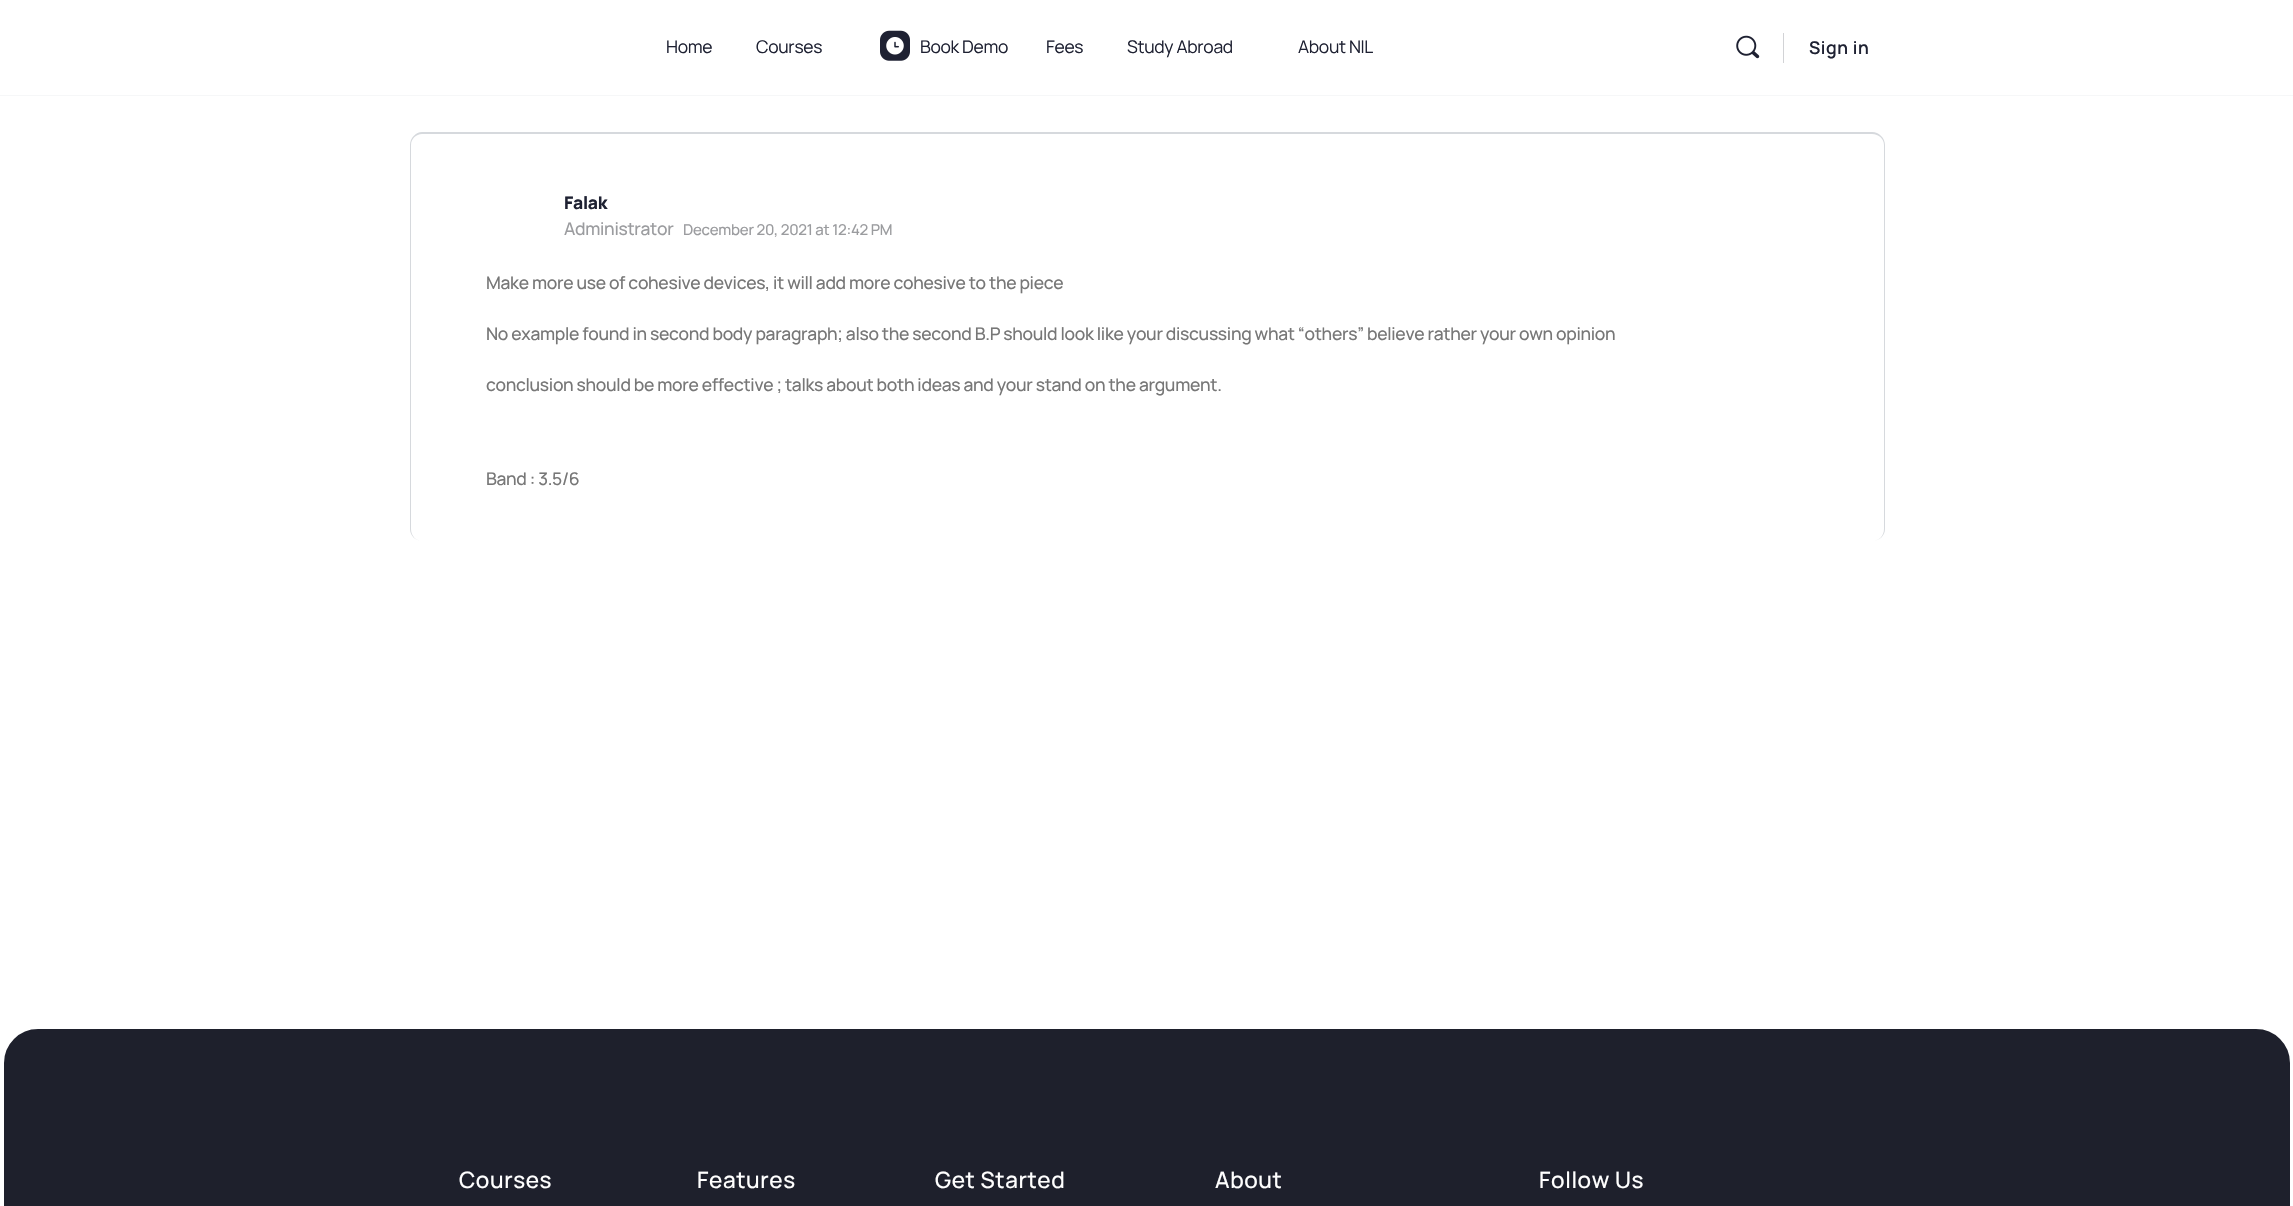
void draw(SkCanvas* canvas) {
    SkPaint paint;
    paint.setAntiAlias(true);
    auto face = [&](const char* family, int weight, float size, bool italic = false) {
        SkFontStyle style(weight, SkFontStyle::kNormal_Width,
            italic ? SkFontStyle::kItalic_Slant : SkFontStyle::kUpright_Slant);
        SkFont result(fontMgr->matchFamilyStyle(family, style), size);
        result.setSubpixel(true);
        return result;
    };
    auto writeSpaced = [&](const char* s, float x, float y, const SkFont& font, const SkPaint& ink, float letter, float word) {
        std::vector<SkGlyphID> glyphs(font.countText(s, strlen(s), SkTextEncoding::kUTF8));
        std::vector<float> xs(glyphs.size());
        font.textToGlyphs(s, strlen(s), SkTextEncoding::kUTF8, glyphs);
        font.getXPos(glyphs, xs, x);
        float extra = 0;
        for (size_t i = 0; i < glyphs.size(); i++) {
            xs[i] += extra;
            extra += letter + word * (glyphs[i] == font.unicharToGlyph(' '));
        }
        canvas->drawTextBlob(SkTextBlob::MakeFromPosHGlyphs(glyphs, xs, y, font), 0, 0, ink);
    };
    auto block = [&](float x, float y, float w, float h, SkColor color) {
        SkPaint ink(SkColor4f::FromColor(color));
        ink.setAntiAlias(true);
        canvas->drawRect(SkRect::MakeXYWH(x, y, w, h), ink);
    };
    auto paste = [&](const char* path, float x, float y, float w, float h) {
        auto image = SkImages::DeferredFromEncodedData(SkData::MakeFromFileName(path));
        canvas->drawImageRect(image, SkRect::MakeXYWH(x, y, w, h), SkSamplingOptions());
    };
    canvas->clear(SK_ColorWHITE);
    paint.setColor(SkColorSetRGB(246, 247, 248));
    canvas->drawPath(SkPathBuilder().moveTo(0, 95).lineTo(0, 96).lineTo(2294, 96).lineTo(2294, 1).lineTo(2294, 95).close().detach(), paint);
    auto kFont1 = face("Manrope", 400, 17.5f);
    paint.setColor(SkColorSetRGB(30, 33, 50));
    writeSpaced("Home", 666, 53, kFont1, paint, -0.3f, 0);
    writeSpaced("Courses", 756, 53, kFont1, paint, -0.3f, 0);
    paste("pic1.png", 880, 30, 30, 31);
    writeSpaced("Book Demo", 920, 53, kFont1, paint, -0.3f, 0);
    writeSpaced("Fees", 1046, 53, kFont1, paint, -0.3f, 0);
    writeSpaced("Study Abroad", 1127, 53, kFont1, paint, -0.3f, 0);
    writeSpaced("About NIL", 1298, 53, kFont1, paint, -0.3f, 0);
    paste("pic2.png", 1736, 35, 24, 24);
    block(1783, 33, 1, 30, SkColorSetRGB(210, 211, 214));
    auto kFont2 = face("Manrope", 600, 17.5f);
    writeSpaced("Sign in", 1809, 54, kFont2, paint, 0.6f, 0);
    paint.setColor(SkColorSetRGB(214, 217, 221));
    canvas->drawPath(SkPathBuilder(SkPathFillType::kEvenOdd).moveTo(422, 132).lineTo(1872, 132).cubicTo(1879, 132, 1885, 138, 1885, 145).lineTo(1885, 529).cubicTo(1885, 536, 1879, 541, 1872, 541).lineTo(422, 541).cubicTo(416, 541, 410, 536, 410, 529).lineTo(410, 145).cubicTo(410, 138, 416, 132, 422, 132).close().moveTo(422, 134).lineTo(1872, 134).cubicTo(1879, 134, 1884, 139, 1884, 145).lineTo(1884, 529).cubicTo(1884, 536, 1879, 541, 1872, 541).lineTo(422, 541).cubicTo(416, 541, 411, 536, 411, 529).lineTo(411, 145).cubicTo(411, 139, 416, 134, 422, 134).close().detach(), paint);
    auto kFont3 = face("Manrope", 800, 17.5f);
    paint.setColor(SkColorSetRGB(30, 33, 50));
    writeSpaced("Falak", 564, 209, kFont3, paint, -0.3f, 0);
    auto kFont4 = face("Manrope", 500, 17.5f);
    paint.setColor(SkColorSetRGB(155, 156, 159));
    writeSpaced("Administrator", 564, 235, kFont4, paint, -0.3f, 0);
    auto kFont5 = face("Manrope", 500, 15);
    writeSpaced("December 20, 2021 at 12:42 PM", 683, 235, kFont5, paint, -0.25f, 0);
    paint.setColor(SkColorSetRGB(119, 119, 119));
    writeSpaced("Make more use of cohesive devices, it will add more cohesive to the piece", 486, 289, kFont4, paint, -0.3f, 0);
    writeSpaced("No example found in second body paragraph; also the second B.P should look like your discussing what “others” believe rather your own opinion", 486, 340, kFont4, paint, -0.3f, 0);
    writeSpaced("conclusion should be more effective ; talks about both ideas and your stand on the argument.", 486, 391, kFont4, paint, -0.3f, 0);
    writeSpaced("Band : 3.5/6", 486, 485, kFont4, paint, -0.3f, 0);
    paint.setColor(SkColorSetRGB(30, 32, 44));
    canvas->drawRoundRect(SkRect::MakeXYWH(2, 1027, 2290, 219), 36, 36, paint);
    paint.setStyle(SkPaint::kStroke_Style);
    paint.setStrokeWidth(4);
    paint.setColor(SK_ColorWHITE);
    canvas->drawRoundRect(SkRect::MakeXYWH(2, 1027, 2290, 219), 36, 36, paint);
    auto kFont6 = face("Manrope", 500, 22.5f);
    paint.setStyle(SkPaint::kFill_Style);
    writeSpaced("Courses", 459, 1188, kFont6, paint, 0.6f, 0);
    writeSpaced("Features", 697, 1188, kFont6, paint, 0.6f, 0);
    writeSpaced("Get Started", 935, 1188, kFont6, paint, 0.6f, 0);
    writeSpaced("About", 1215, 1188, kFont6, paint, 0.6f, 0);
    writeSpaced("Follow Us", 1539, 1188, kFont6, paint, 0.6f, 0);
}
